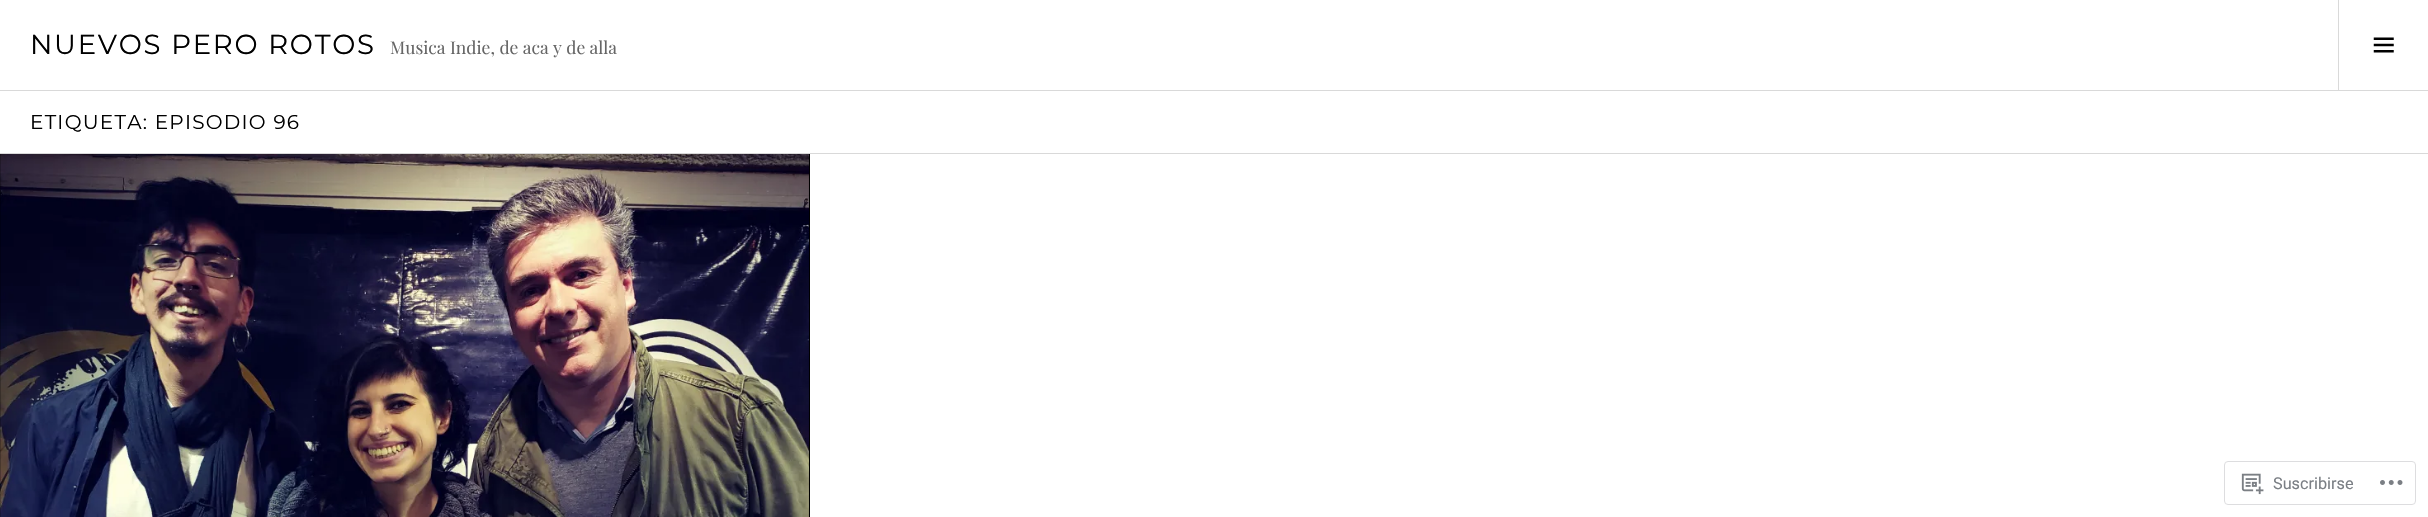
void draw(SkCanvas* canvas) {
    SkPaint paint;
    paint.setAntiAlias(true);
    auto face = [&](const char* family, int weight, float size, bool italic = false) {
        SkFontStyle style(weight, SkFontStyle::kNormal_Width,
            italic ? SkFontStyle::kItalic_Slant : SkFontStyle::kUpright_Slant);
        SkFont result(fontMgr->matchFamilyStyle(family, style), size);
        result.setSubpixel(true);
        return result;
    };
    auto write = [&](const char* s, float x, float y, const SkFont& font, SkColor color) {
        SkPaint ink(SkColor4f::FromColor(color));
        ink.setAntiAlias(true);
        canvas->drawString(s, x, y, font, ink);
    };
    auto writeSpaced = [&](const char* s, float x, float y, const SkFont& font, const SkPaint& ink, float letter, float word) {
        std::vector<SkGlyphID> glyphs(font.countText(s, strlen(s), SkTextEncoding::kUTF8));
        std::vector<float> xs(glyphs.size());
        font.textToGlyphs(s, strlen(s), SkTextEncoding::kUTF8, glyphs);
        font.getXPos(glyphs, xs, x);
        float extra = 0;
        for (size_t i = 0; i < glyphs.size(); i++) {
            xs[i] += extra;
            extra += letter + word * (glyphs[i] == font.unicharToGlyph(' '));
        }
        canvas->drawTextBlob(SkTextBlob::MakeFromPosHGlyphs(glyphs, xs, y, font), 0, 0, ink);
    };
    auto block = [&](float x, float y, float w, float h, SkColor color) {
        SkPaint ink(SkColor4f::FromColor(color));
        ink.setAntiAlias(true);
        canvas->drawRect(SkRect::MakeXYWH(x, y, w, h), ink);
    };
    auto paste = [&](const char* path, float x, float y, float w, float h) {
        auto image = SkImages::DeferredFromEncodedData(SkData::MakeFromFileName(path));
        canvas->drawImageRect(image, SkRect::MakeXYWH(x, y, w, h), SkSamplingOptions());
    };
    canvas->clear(SK_ColorWHITE);
    block(0, 90, 2428, 1, SkColorSetRGB(217, 217, 217));
    auto kFont1 = face("Montserrat", 400, 27.5f);
    paint.setColor(SK_ColorBLACK);
    writeSpaced("NUEVOS PERO ROTOS", 30, 54, kFont1, paint, 1.75f, 0);
    auto kFont2 = face("Playfair Display", 400, 17.5f);
    write("Musica Indie, de aca y de alla", 390, 54, kFont2, SkColorSetRGB(102, 102, 102));
    block(2338, 0, 1, 90, SkColorSetRGB(217, 217, 217));
    paste("pic1.png", 2373, 37, 21, 16);
    block(0, 153, 2428, 1, SkColorSetRGB(217, 217, 217));
    auto kFont3 = face("Montserrat", 400, 20);
    writeSpaced("ETIQUETA: EPISODIO 96", 30, 129, kFont3, paint, 1.25f, 0);
    block(0, 154, 810, 363, SK_ColorBLACK);
    paste("pic2.png", 0, 154, 809, 363);
    paint.setStyle(SkPaint::kStroke_Style);
    paint.setStrokeWidth(1);
    paint.setColor(SkColorSetRGB(221, 221, 223));
    canvas->drawRoundRect(SkRect::MakeXYWH(2224.5f, 461.5f, 191, 43), 3.5f, 3.5f, paint);
    paste("pic3.png", 2241, 473, 23, 22);
    auto kFont4 = face("Roboto", 400, 16.25f);
    write("Suscribirse", 2273, 489, kFont4, SkColorSetRGB(123, 127, 133));
    paste("pic4.png", 2380, 480, 23, 5);
}
